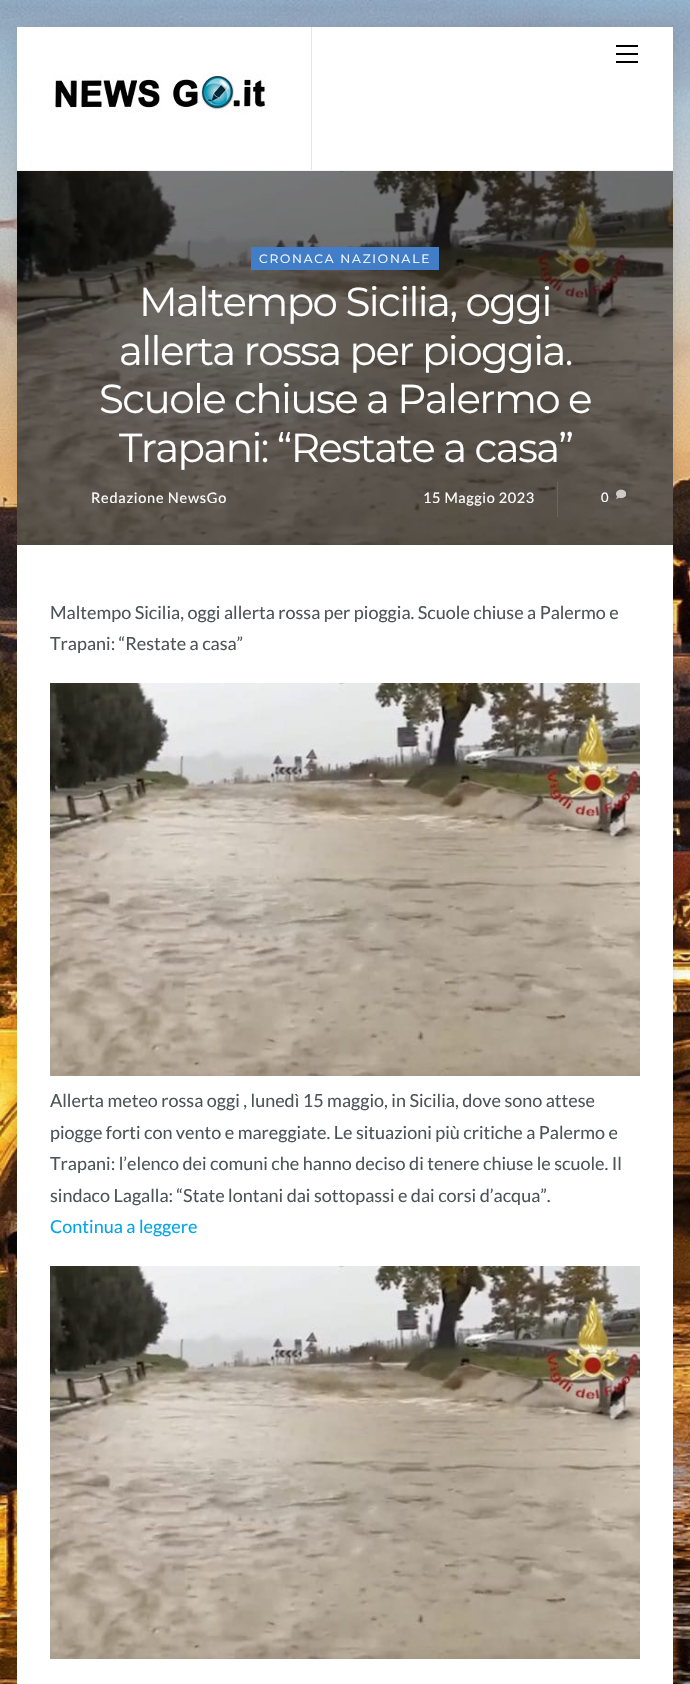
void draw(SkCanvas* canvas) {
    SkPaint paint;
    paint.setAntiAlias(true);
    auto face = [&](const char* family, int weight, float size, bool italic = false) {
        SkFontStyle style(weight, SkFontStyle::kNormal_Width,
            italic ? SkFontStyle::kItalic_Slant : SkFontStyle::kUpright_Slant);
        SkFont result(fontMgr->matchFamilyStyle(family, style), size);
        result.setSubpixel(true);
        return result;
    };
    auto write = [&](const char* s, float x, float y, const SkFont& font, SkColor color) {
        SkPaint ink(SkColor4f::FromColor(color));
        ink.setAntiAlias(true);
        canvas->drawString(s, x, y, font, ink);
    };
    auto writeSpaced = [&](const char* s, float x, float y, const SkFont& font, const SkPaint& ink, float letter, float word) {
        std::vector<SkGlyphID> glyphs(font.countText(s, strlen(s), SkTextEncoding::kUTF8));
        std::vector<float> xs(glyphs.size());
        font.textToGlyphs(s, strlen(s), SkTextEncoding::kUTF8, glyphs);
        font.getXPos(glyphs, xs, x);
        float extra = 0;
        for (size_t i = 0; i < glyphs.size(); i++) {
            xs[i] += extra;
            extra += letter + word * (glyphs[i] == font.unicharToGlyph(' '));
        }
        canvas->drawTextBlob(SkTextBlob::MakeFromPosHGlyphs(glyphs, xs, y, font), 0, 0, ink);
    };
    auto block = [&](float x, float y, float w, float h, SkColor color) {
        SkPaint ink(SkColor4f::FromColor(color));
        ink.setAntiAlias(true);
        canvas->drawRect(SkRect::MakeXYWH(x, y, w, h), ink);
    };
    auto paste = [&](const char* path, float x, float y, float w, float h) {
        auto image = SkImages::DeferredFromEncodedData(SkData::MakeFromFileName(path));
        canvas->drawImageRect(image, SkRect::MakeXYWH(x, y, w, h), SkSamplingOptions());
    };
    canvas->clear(SK_ColorWHITE);
    paste("pic1.png", 0, 0, 690, 1684);
    paint.setColor(SkColorSetARGB(26, 0, 0, 0));
    paint.setMaskFilter(SkMaskFilter::MakeBlur(kNormal_SkBlurStyle, 8));
    canvas->drawRect(SkRect::MakeXYWH(17, 30, 656, 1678), paint);
    paint.setMaskFilter(nullptr);
    block(17, 27, 656, 1657, SK_ColorWHITE);
    block(17, 170, 656, 1, SkColorSetRGB(242, 242, 242));
    block(311, 27, 1, 143, SkColorSetRGB(230, 230, 230));
    paste("pic2.png", 51, 73, 215, 40);
    block(616, 61, 22, 2, SK_ColorBLACK);
    block(616, 45, 22, 2, SK_ColorBLACK);
    block(616, 53, 22, 2, SK_ColorBLACK);
    paste("pic3.png", 17, 171, 656, 374);
    block(251, 247, 188, 23, SkColorSetRGB(66, 125, 200));
    auto kFont1 = face("Montserrat", 400, 12.2f);
    paint.setColor(SK_ColorWHITE);
    writeSpaced("CRONACA NAZIONALE", 259, 263, kFont1, paint, 1.8f, 0);
    auto kFont2 = face("Lato", 400, 14.5f);
    writeSpaced("Redazione NewsGo", 91, 503, kFont2, paint, 0.75f, 0);
    auto kFont3 = face("Lato", 400, 13);
    write("0", 601, 502, kFont3, SK_ColorWHITE);
    paste("pic4.png", 616, 489, 10, 10);
    auto kFont4 = face("Montserrat", 400, 40.5f);
    writeSpaced("Maltempo Sicilia, oggi", 139, 316, kFont4, paint, -1.6f, 0);
    writeSpaced("allerta rossa per pioggia.", 119, 365, kFont4, paint, -1.6f, 0);
    writeSpaced("Scuole chiuse a Palermo e", 99, 413, kFont4, paint, -1.6f, 0);
    writeSpaced("Trapani: “Restate a casa”", 119, 462, kFont4, paint, -1.6f, 0);
    writeSpaced("15 Maggio 2023", 423, 503, kFont2, paint, 0.6f, 0);
    block(557, 482, 1, 35, SkColorSetRGB(102, 102, 102));
    auto kFont5 = face("Lato", 400, 18);
    write("Maltempo Sicilia, oggi allerta rossa per pioggia. Scuole chiuse a Palermo e", 50, 619, kFont5, SkColorSetRGB(77, 84, 87));
    write("Trapani: “Restate a casa”", 50, 650, kFont5, SkColorSetRGB(77, 84, 87));
    paste("pic5.png", 50, 683, 590, 393);
    write("Allerta meteo rossa oggi , lunedì 15 maggio, in Sicilia, dove sono attese", 50, 1107, kFont5, SkColorSetRGB(77, 84, 87));
    write("piogge forti con vento e mareggiate. Le situazioni più critiche a Palermo e", 50, 1139, kFont5, SkColorSetRGB(77, 84, 87));
    write("Trapani: l’elenco dei comuni che hanno deciso di tenere chiuse le scuole. Il", 50, 1170, kFont5, SkColorSetRGB(77, 84, 87));
    write("sindaco Lagalla: “State lontani dai sottopassi e dai corsi d’acqua”.", 50, 1202, kFont5, SkColorSetRGB(77, 84, 87));
    write("Continua a leggere", 50, 1233, kFont5, SkColorSetRGB(0, 165, 230));
    paste("pic5.png", 50, 1266, 590, 393);
}
